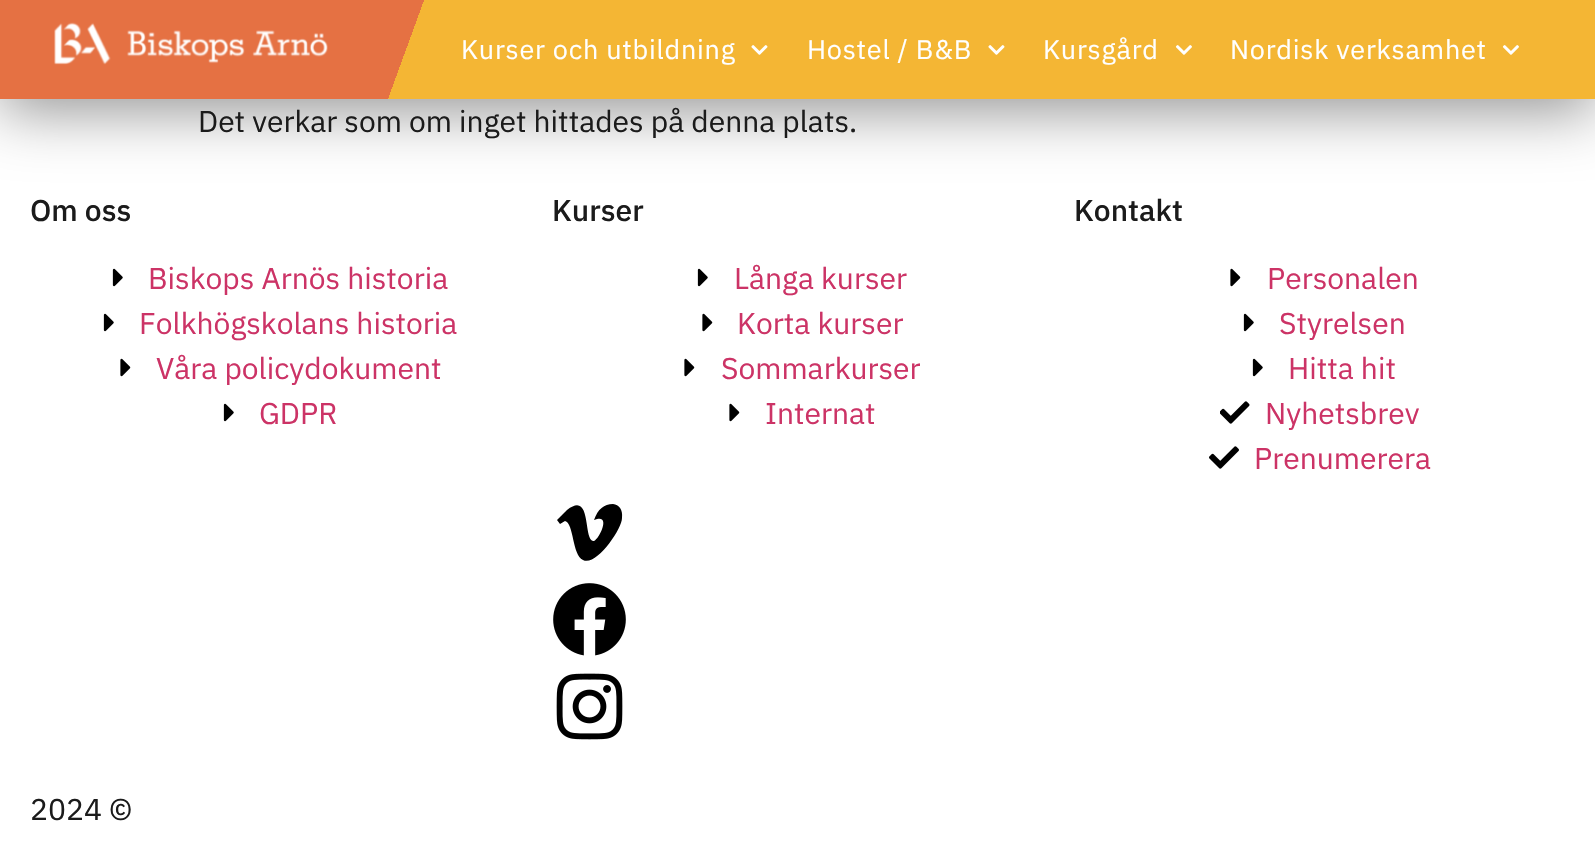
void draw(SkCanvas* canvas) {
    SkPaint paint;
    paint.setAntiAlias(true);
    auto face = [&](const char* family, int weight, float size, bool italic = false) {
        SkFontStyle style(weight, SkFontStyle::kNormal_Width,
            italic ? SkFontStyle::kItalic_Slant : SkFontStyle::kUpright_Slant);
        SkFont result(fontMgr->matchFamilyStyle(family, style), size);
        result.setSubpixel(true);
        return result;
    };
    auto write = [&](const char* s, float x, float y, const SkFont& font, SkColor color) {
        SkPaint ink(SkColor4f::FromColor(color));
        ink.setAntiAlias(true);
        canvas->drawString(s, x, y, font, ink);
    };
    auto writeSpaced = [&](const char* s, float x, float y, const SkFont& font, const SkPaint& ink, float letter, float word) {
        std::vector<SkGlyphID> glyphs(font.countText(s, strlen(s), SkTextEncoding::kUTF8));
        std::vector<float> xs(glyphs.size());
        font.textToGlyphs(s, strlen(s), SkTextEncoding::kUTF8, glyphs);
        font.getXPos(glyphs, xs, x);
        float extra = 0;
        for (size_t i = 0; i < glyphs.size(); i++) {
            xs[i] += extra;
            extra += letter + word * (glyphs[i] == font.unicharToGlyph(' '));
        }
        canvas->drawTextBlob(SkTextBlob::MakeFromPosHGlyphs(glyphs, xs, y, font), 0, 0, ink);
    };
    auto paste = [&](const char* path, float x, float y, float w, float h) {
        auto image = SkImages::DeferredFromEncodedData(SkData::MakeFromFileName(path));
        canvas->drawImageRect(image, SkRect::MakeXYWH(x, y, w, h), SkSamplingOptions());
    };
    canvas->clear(SK_ColorWHITE);
    paint.setColor(SkColorSetARGB(107, 0, 0, 0));
    paint.setMaskFilter(SkMaskFilter::MakeBlur(kNormal_SkBlurStyle, 30));
    canvas->drawRect(SkRect::MakeXYWH(0, 12, 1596, 99), paint);
    paint.setMaskFilter(nullptr);
    {
        const SkColor colors[] = {SkColorSetRGB(229, 113, 67), SkColorSetRGB(244, 182, 52)};
        const float stops[] = {0.26f, 0.26f};
        const SkPoint ends[] = {{77, -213}, {1519, 312}};
        paint.setShader(SkGradientShader::MakeLinear(ends, colors, stops, 2, SkTileMode::kClamp));
        paint.setAlpha(255);
    }
    canvas->drawRect(SkRect::MakeXYWH(0, 0, 1595, 99), paint);
    paste("pic1.png", 54, 22, 274, 43);
    auto kFont1 = face("IBM Plex Sans", 400, 27);
    paint.setShader(nullptr);
    paint.setColor(SK_ColorWHITE);
    writeSpaced("Kurser och utbildning", 461, 59, kFont1, paint, 0.75f, 0);
    paste("pic2.png", 751, 45, 17, 10);
    writeSpaced("Hostel / B&B", 807, 59, kFont1, paint, 0.75f, 0);
    paste("pic2.png", 988, 45, 17, 10);
    writeSpaced("Kursgård", 1043, 59, kFont1, paint, 0.75f, 0);
    paste("pic3.png", 1175, 45, 17, 10);
    writeSpaced("Nordisk verksamhet", 1230, 59, kFont1, paint, 0.75f, 0);
    paste("pic3.png", 1502, 45, 17, 10);
    auto kFont2 = face("IBM Plex Sans", 400, 30);
    write("Det verkar som om inget hittades på denna plats.", 198, 132, kFont2, SkColorSetRGB(27, 27, 27));
    auto kFont3 = face("IBM Plex Sans", 500, 30);
    write("Om oss", 30, 221, kFont3, SkColorSetRGB(27, 27, 27));
    paste("pic4.png", 112, 268, 11, 19);
    write("Biskops Arnös historia", 148, 289, kFont2, SkColorSetRGB(204, 51, 102));
    paste("pic4.png", 103, 313, 11, 19);
    write("Folkhögskolans historia", 139, 334, kFont2, SkColorSetRGB(204, 51, 102));
    paste("pic5.png", 120, 358, 11, 19);
    write("Våra policydokument", 156, 379, kFont2, SkColorSetRGB(204, 51, 102));
    paste("pic4.png", 223, 403, 11, 19);
    write("GDPR", 259, 424, kFont2, SkColorSetRGB(204, 51, 102));
    write("Kurser", 552, 221, kFont3, SkColorSetRGB(27, 27, 27));
    paste("pic4.png", 697, 268, 11, 19);
    write("Långa kurser", 734, 289, kFont2, SkColorSetRGB(204, 51, 102));
    paste("pic5.png", 702, 313, 11, 19);
    write("Korta kurser", 737, 334, kFont2, SkColorSetRGB(204, 51, 102));
    paste("pic5.png", 684, 358, 11, 19);
    write("Sommarkurser", 721, 379, kFont2, SkColorSetRGB(204, 51, 102));
    paste("pic5.png", 729, 403, 11, 19);
    write("Internat", 765, 424, kFont2, SkColorSetRGB(204, 51, 102));
    paint.setColor(SK_ColorBLACK);
    canvas->drawPath(SkPathBuilder().moveTo(622, 518).cubicTo(622, 529, 596, 567, 583, 560).cubicTo(572, 555, 574, 523, 565, 521).lineTo(560, 524).lineTo(557, 520).lineTo(567, 510).cubicTo(592, 490, 583, 539, 593, 541).cubicTo(598, 542, 613, 512, 594, 520).cubicTo(598, 509, 604, 504, 613, 504).cubicTo(619, 505, 623, 509, 622, 518).close().detach(), paint);
    paste("pic6.png", 553, 583, 73, 73);
    paste("pic7.png", 556, 673, 67, 67);
    write("Kontakt", 1074, 221, kFont3, SkColorSetRGB(27, 27, 27));
    paste("pic5.png", 1230, 268, 11, 19);
    write("Personalen", 1267, 289, kFont2, SkColorSetRGB(204, 51, 102));
    paste("pic4.png", 1243, 313, 11, 19);
    write("Styrelsen", 1279, 334, kFont2, SkColorSetRGB(204, 51, 102));
    paste("pic4.png", 1252, 358, 11, 19);
    write("Hitta hit", 1288, 379, kFont2, SkColorSetRGB(204, 51, 102));
    paste("pic8.png", 1220, 401, 30, 23);
    write("Nyhetsbrev", 1265, 424, kFont2, SkColorSetRGB(204, 51, 102));
    paste("pic9.png", 1209, 446, 30, 23);
    write("Prenumerera", 1254, 469, kFont2, SkColorSetRGB(204, 51, 102));
    write("2024 ©", 30, 820, kFont2, SkColorSetRGB(27, 27, 27));
}
